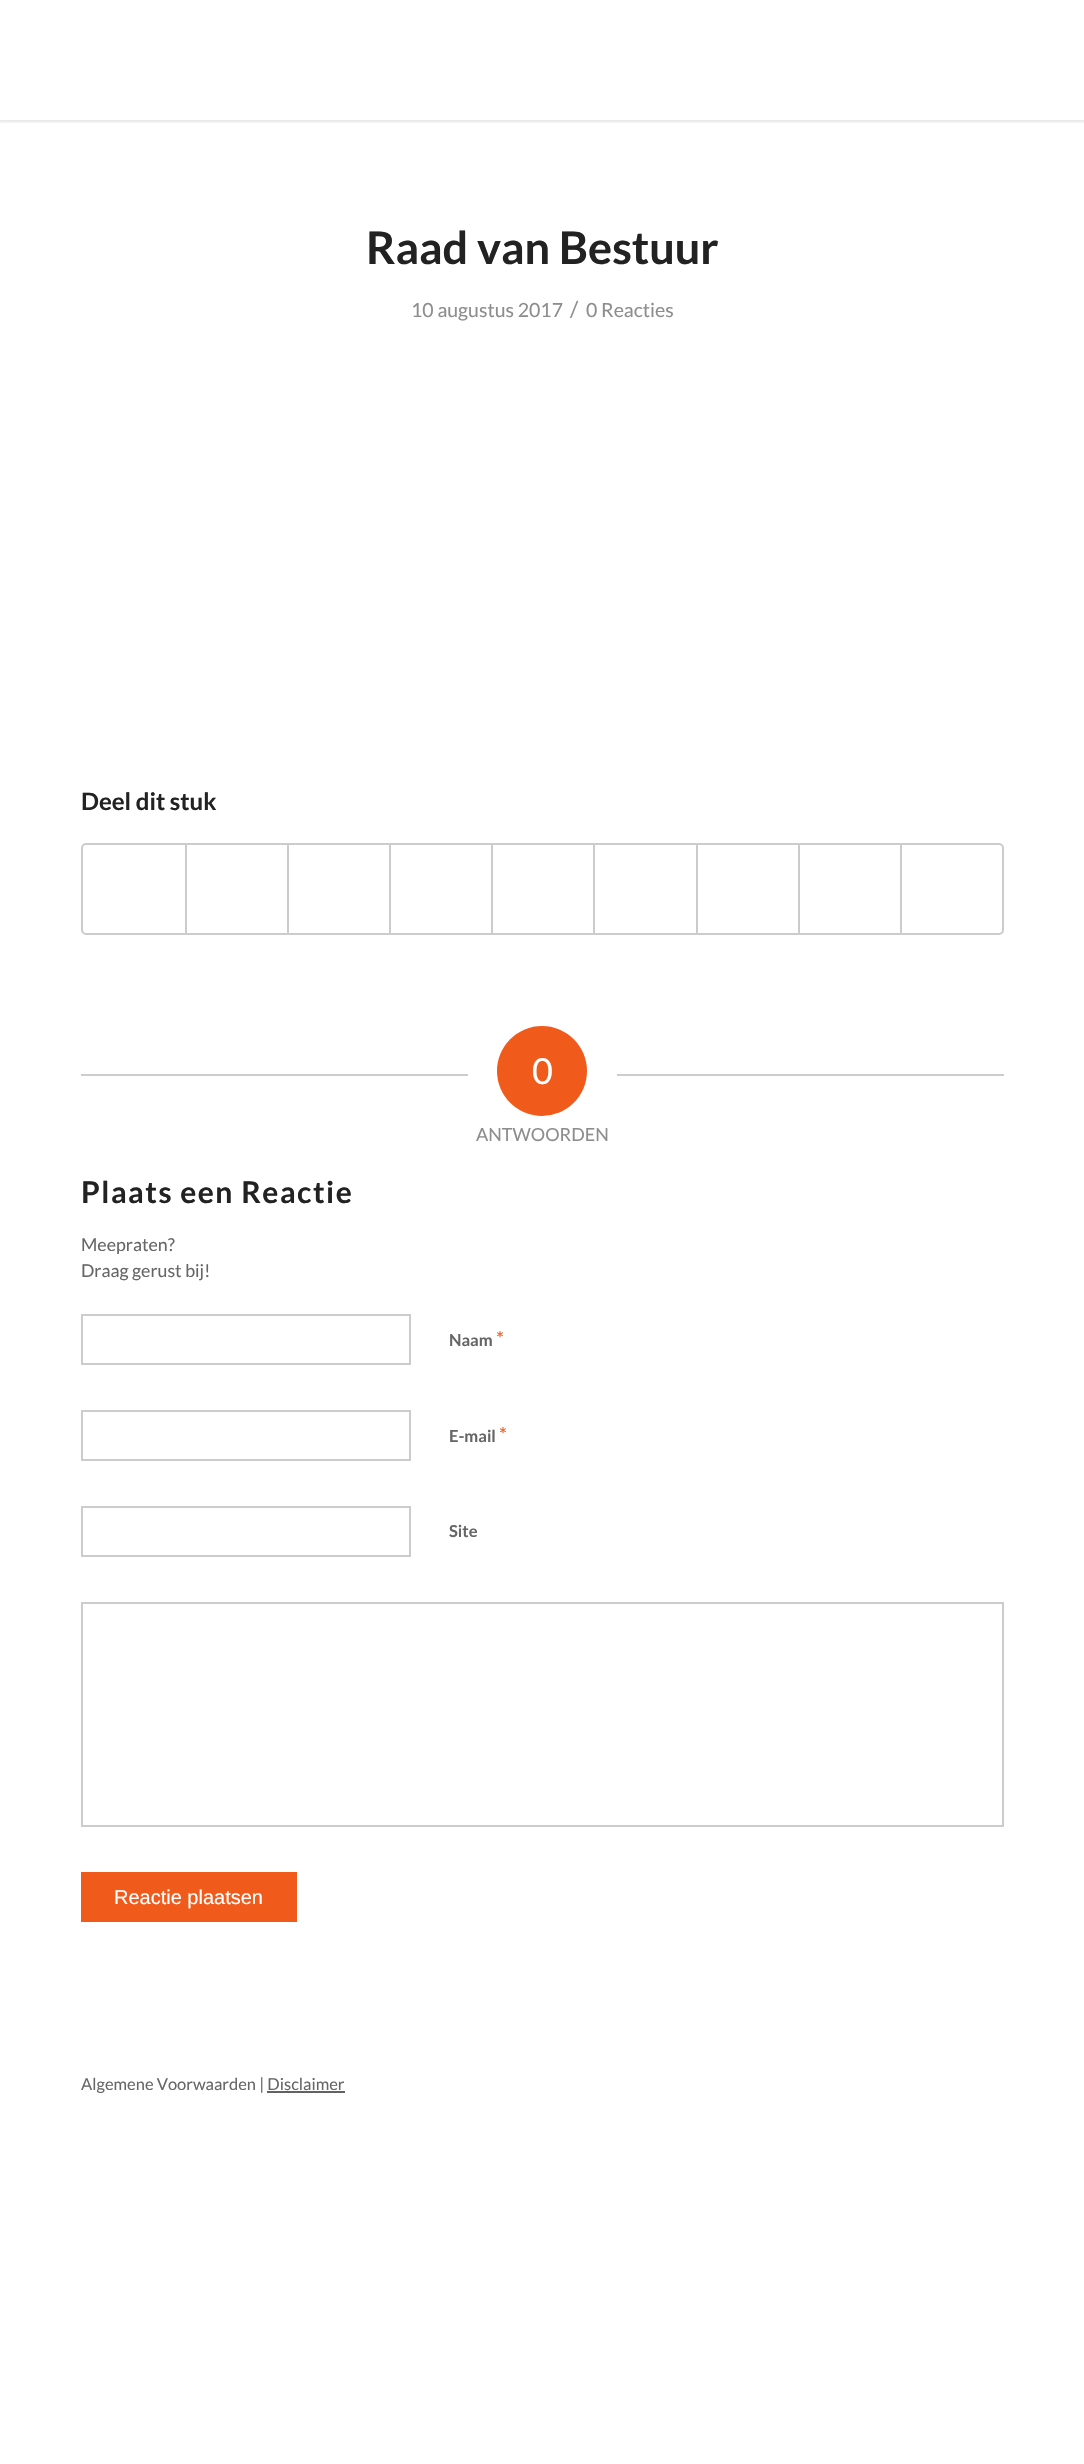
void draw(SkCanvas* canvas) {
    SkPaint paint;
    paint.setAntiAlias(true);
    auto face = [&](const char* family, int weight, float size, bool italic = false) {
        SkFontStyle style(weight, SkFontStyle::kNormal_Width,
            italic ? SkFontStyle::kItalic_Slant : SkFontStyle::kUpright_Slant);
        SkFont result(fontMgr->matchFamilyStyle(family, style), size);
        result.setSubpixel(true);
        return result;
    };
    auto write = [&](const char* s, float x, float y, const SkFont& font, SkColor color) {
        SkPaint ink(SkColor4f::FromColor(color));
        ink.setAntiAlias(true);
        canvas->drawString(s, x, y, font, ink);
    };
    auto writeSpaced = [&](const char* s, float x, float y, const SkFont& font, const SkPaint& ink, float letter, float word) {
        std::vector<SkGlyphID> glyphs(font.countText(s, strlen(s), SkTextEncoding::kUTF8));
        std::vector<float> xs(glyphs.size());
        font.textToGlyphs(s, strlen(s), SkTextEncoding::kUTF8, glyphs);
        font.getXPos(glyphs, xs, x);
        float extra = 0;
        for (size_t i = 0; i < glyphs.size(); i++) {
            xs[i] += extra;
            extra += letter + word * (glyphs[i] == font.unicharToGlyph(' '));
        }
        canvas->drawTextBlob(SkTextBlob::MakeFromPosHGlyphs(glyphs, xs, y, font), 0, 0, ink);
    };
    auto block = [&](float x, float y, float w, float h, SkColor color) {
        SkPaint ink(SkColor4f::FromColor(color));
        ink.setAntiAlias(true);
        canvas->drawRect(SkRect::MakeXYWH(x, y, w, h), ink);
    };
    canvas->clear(SK_ColorWHITE);
    canvas->save();
    canvas->clipRect(SkRect::MakeXYWH(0, 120, 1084, 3));
    paint.setColor(SkColorSetARGB(26, 0, 0, 0));
    paint.setMaskFilter(SkMaskFilter::MakeBlur(kNormal_SkBlurStyle, 1.5f));
    canvas->drawRect(SkRect::MakeXYWH(-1, -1, 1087, 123), paint);
    paint.setMaskFilter(nullptr);
    canvas->restore();
    auto kFont1 = face("Lato", 700, 45);
    write("Raad van Bestuur", 366, 264, kFont1, SkColorSetRGB(34, 34, 34));
    auto kFont2 = face("Lato", 400, 19.5f);
    write("10 augustus 2017", 411, 317, kFont2, SkColorSetRGB(141, 141, 141));
    auto kFont3 = face("Lato", 400, 22);
    write("/", 570, 317, kFont3, SkColorSetRGB(141, 141, 141));
    write("0 Reacties", 586, 317, kFont2, SkColorSetRGB(141, 141, 141));
    auto kFont4 = face("Lato", 700, 24);
    write("Deel dit stuk", 81, 810, kFont4, SkColorSetRGB(34, 34, 34));
    paint.setStyle(SkPaint::kStroke_Style);
    paint.setStrokeWidth(2);
    paint.setColor(SkColorSetRGB(204, 204, 204));
    canvas->drawRoundRect(SkRect::MakeXYWH(82, 844, 921, 90), 4, 4, paint);
    block(185, 845, 2, 88, SkColorSetRGB(204, 204, 204));
    block(287, 845, 2, 88, SkColorSetRGB(204, 204, 204));
    block(389, 845, 2, 88, SkColorSetRGB(204, 204, 204));
    block(491, 845, 2, 88, SkColorSetRGB(204, 204, 204));
    block(593, 845, 2, 88, SkColorSetRGB(204, 204, 204));
    block(696, 845, 2, 88, SkColorSetRGB(204, 204, 204));
    block(798, 845, 2, 88, SkColorSetRGB(204, 204, 204));
    block(900, 845, 2, 88, SkColorSetRGB(204, 204, 204));
    block(81, 1074, 387, 2, SkColorSetRGB(204, 204, 204));
    paint.setStyle(SkPaint::kFill_Style);
    paint.setColor(SkColorSetRGB(240, 90, 26));
    canvas->drawCircle(542, 1071, 45, paint);
    auto kFont5 = face("Lato", 400, 36);
    write("0", 532, 1084, kFont5, SK_ColorWHITE);
    block(617, 1074, 387, 2, SkColorSetRGB(204, 204, 204));
    auto kFont6 = face("Lato", 400, 18);
    write("ANTWOORDEN", 476, 1141, kFont6, SkColorSetRGB(141, 141, 141));
    auto kFont7 = face("Lato", 700, 30);
    paint.setColor(SkColorSetRGB(34, 34, 34));
    writeSpaced("Plaats een Reactie", 81, 1203, kFont7, paint, 1.5f, 0);
    auto kFont8 = face("Lato", 400, 17.75f);
    write("Meepraten?", 81, 1251, kFont8, SkColorSetRGB(102, 102, 102));
    write("Draag gerust bij!", 81, 1277, kFont8, SkColorSetRGB(102, 102, 102));
    paint.setStyle(SkPaint::kStroke_Style);
    paint.setColor(SkColorSetRGB(204, 204, 204));
    canvas->drawRect(SkRect::MakeXYWH(82, 1315, 328, 49), paint);
    auto kFont9 = face("Lato", 700, 16.5f);
    write("Naam", 449, 1346, kFont9, SkColorSetRGB(102, 102, 102));
    auto kFont10 = face("Lato", 400, 20);
    write("*", 496, 1346, kFont10, SkColorSetRGB(240, 90, 26));
    canvas->drawRect(SkRect::MakeXYWH(82, 1411, 328, 49), paint);
    write("E-mail", 449, 1442, kFont9, SkColorSetRGB(102, 102, 102));
    write("*", 499, 1442, kFont10, SkColorSetRGB(240, 90, 26));
    canvas->drawRect(SkRect::MakeXYWH(82, 1507, 328, 49), paint);
    write("Site", 449, 1537, kFont9, SkColorSetRGB(102, 102, 102));
    canvas->drawRect(SkRect::MakeXYWH(82, 1603, 921, 223), paint);
    block(81, 1872, 216, 50, SkColorSetRGB(240, 90, 26));
    auto kFont11 = face("Liberation Sans", 400, 20);
    write("Reactie plaatsen", 114, 1904, kFont11, SK_ColorWHITE);
    auto kFont12 = face("Lato", 400, 16.5f);
    write("Algemene Voorwaarden | Disclaimer", 81, 2090, kFont12, SkColorSetRGB(102, 102, 102));
    block(267, 2091, 78, 2, SkColorSetRGB(98, 98, 98));
}
